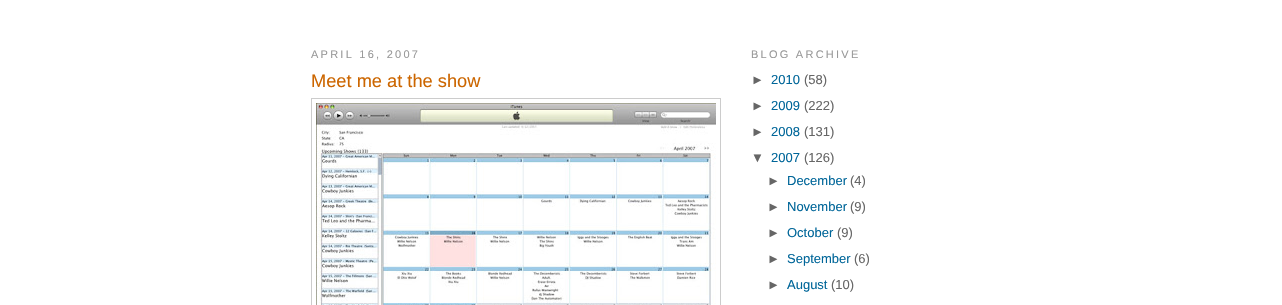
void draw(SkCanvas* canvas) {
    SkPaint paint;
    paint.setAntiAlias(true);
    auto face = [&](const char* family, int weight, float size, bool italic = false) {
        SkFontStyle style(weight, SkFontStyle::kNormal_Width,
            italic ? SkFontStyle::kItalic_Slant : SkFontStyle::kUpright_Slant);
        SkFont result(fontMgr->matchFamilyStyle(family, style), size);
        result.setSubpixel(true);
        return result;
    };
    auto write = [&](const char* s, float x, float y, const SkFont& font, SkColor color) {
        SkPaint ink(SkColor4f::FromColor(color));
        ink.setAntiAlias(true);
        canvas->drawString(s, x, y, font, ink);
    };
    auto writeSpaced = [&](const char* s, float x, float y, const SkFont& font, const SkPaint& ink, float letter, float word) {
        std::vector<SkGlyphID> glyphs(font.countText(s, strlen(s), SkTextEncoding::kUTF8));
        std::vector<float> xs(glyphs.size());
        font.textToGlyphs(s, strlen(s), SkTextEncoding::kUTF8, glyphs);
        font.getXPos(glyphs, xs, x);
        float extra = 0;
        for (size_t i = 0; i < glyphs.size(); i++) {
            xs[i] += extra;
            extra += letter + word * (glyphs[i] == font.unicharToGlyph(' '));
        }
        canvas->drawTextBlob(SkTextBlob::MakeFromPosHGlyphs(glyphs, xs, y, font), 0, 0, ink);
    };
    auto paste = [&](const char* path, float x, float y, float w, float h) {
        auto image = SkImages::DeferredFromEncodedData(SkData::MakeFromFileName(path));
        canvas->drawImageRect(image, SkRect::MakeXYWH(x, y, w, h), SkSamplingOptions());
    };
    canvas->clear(SK_ColorWHITE);
    auto kFont1 = face("Liberation Sans", 400, 11);
    paint.setColor(SkColorSetRGB(153, 153, 153));
    writeSpaced("APRIL 16, 2007", 311, 58, kFont1, paint, 2.25f, 0);
    auto kFont2 = face("Liberation Sans", 400, 18.25f);
    write("Meet me at the show", 311, 87, kFont2, SkColorSetRGB(204, 102, 0));
    paint.setStyle(SkPaint::kStroke_Style);
    paint.setStrokeWidth(1);
    paint.setColor(SkColorSetRGB(204, 204, 204));
    canvas->drawRect(SkRect::MakeXYWH(311.5f, 98.5f, 409, 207), paint);
    paste("pic1.png", 316, 103, 400, 202);
    paint.setStyle(SkPaint::kFill_Style);
    paint.setColor(SkColorSetRGB(153, 153, 153));
    writeSpaced("BLOG ARCHIVE", 751, 58, kFont1, paint, 2.25f, 0);
    auto kFont3 = face("Liberation Sans", 400, 13);
    write("►", 751, 84, kFont3, SkColorSetRGB(102, 102, 102));
    write("2010", 771, 84, kFont3, SkColorSetRGB(0, 102, 153));
    write("(58)", 804, 84, kFont3, SkColorSetRGB(102, 102, 102));
    write("►", 751, 110, kFont3, SkColorSetRGB(102, 102, 102));
    write("2009", 771, 110, kFont3, SkColorSetRGB(0, 102, 153));
    write("(222)", 804, 110, kFont3, SkColorSetRGB(102, 102, 102));
    write("►", 751, 136, kFont3, SkColorSetRGB(102, 102, 102));
    write("2008", 771, 136, kFont3, SkColorSetRGB(0, 102, 153));
    write("(131)", 804, 136, kFont3, SkColorSetRGB(102, 102, 102));
    write("▼", 751, 162, kFont3, SkColorSetRGB(102, 102, 102));
    write("2007", 771, 162, kFont3, SkColorSetRGB(0, 102, 153));
    write("(126)", 804, 162, kFont3, SkColorSetRGB(102, 102, 102));
    write("►", 767, 185, kFont3, SkColorSetRGB(102, 102, 102));
    write("December", 787, 185, kFont3, SkColorSetRGB(0, 102, 153));
    write("(4)", 850, 185, kFont3, SkColorSetRGB(102, 102, 102));
    write("►", 767, 211, kFont3, SkColorSetRGB(102, 102, 102));
    write("November", 787, 211, kFont3, SkColorSetRGB(0, 102, 153));
    write("(9)", 850, 211, kFont3, SkColorSetRGB(102, 102, 102));
    write("►", 767, 237, kFont3, SkColorSetRGB(102, 102, 102));
    write("October", 787, 237, kFont3, SkColorSetRGB(0, 102, 153));
    write("(9)", 837, 237, kFont3, SkColorSetRGB(102, 102, 102));
    write("►", 767, 263, kFont3, SkColorSetRGB(102, 102, 102));
    write("September", 787, 263, kFont3, SkColorSetRGB(0, 102, 153));
    write("(6)", 854, 263, kFont3, SkColorSetRGB(102, 102, 102));
    write("►", 767, 289, kFont3, SkColorSetRGB(102, 102, 102));
    write("August", 787, 289, kFont3, SkColorSetRGB(0, 102, 153));
    write("(10)", 831, 289, kFont3, SkColorSetRGB(102, 102, 102));
}
